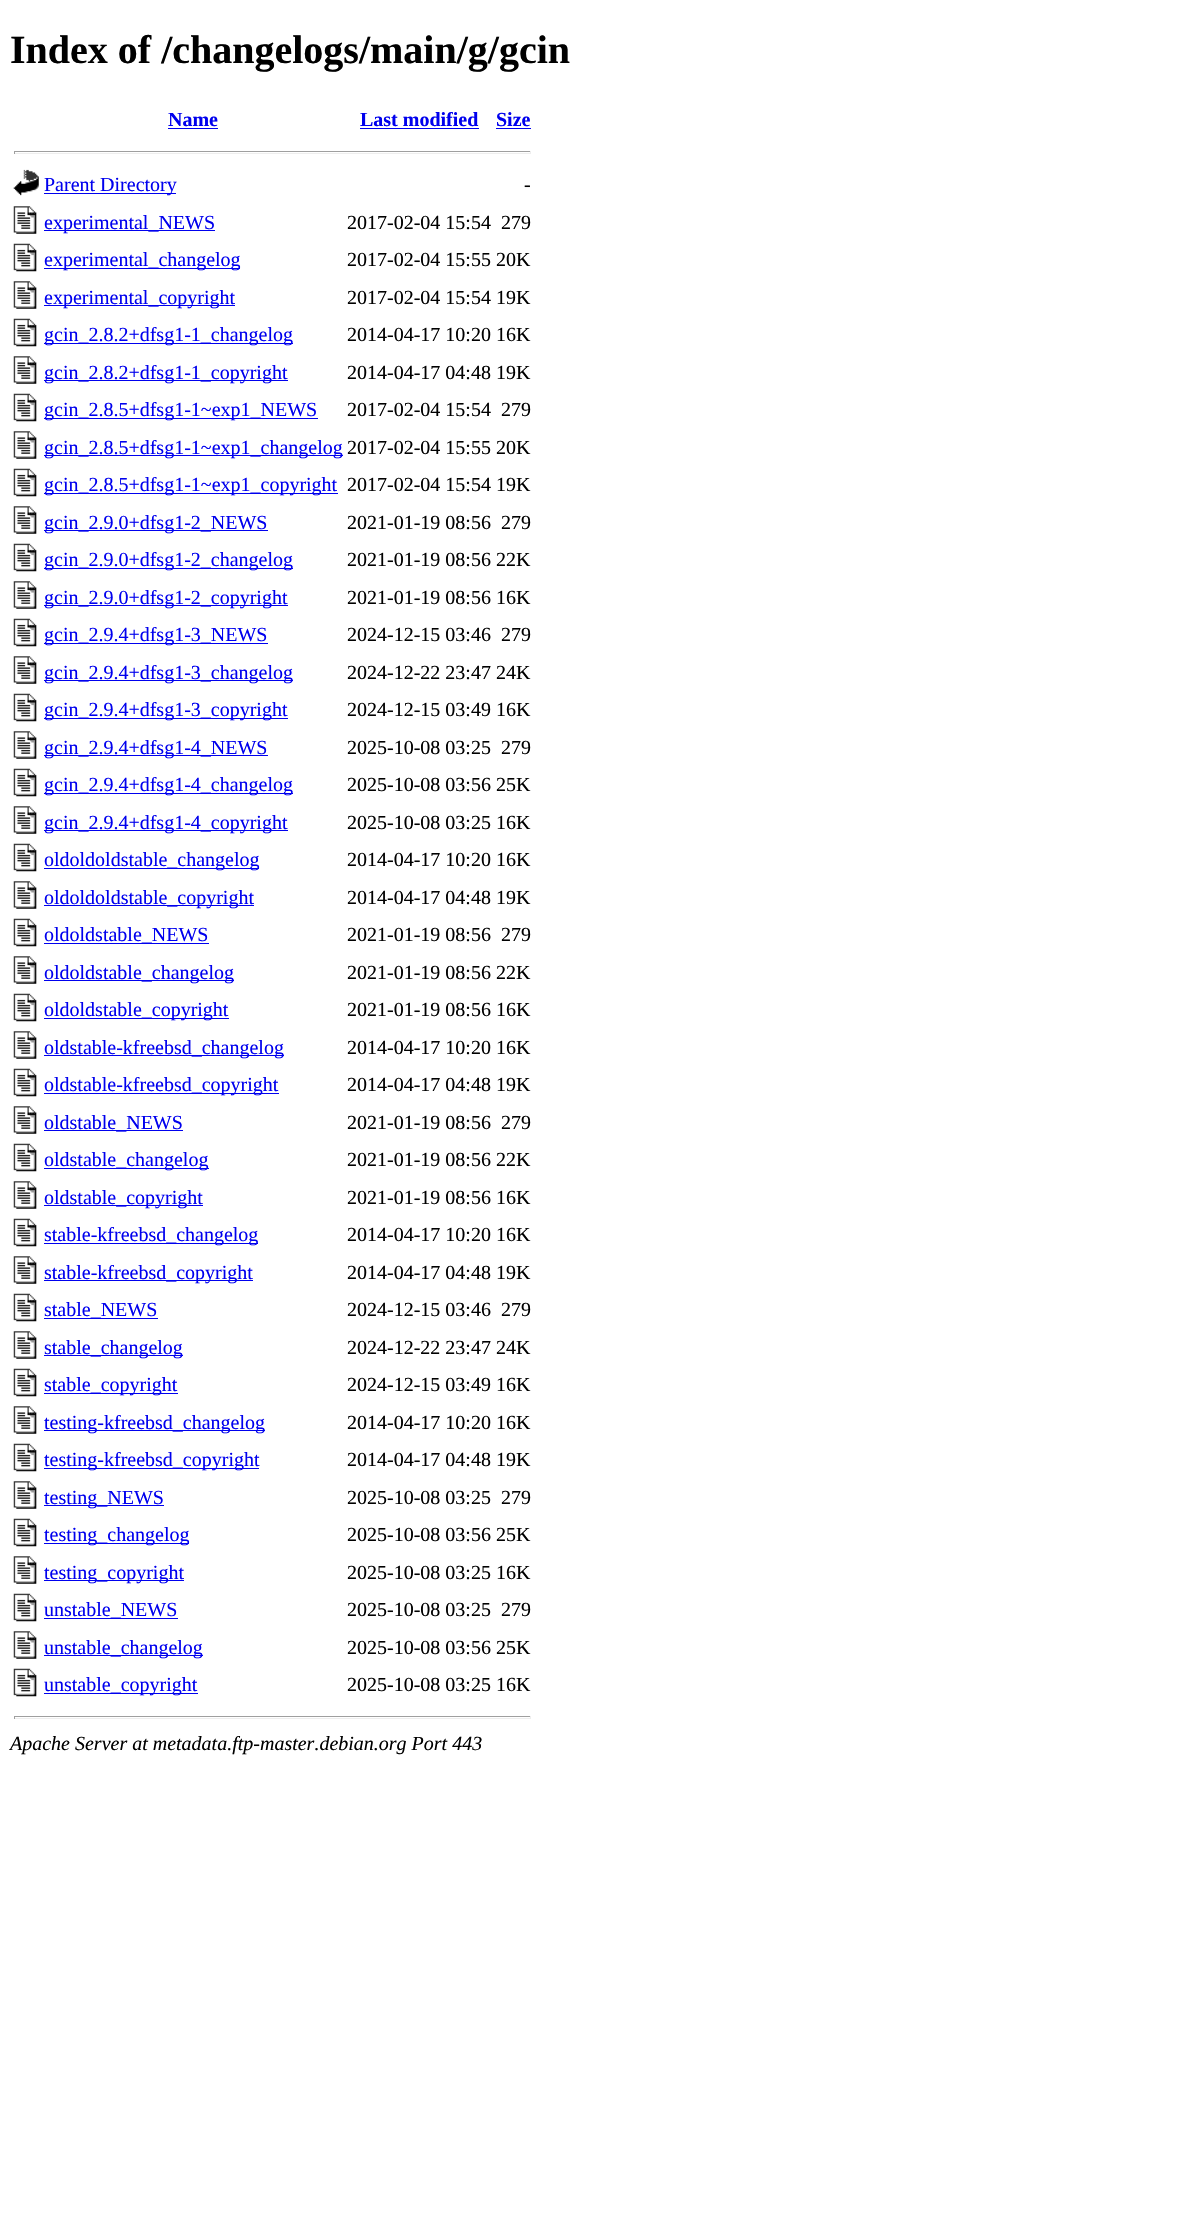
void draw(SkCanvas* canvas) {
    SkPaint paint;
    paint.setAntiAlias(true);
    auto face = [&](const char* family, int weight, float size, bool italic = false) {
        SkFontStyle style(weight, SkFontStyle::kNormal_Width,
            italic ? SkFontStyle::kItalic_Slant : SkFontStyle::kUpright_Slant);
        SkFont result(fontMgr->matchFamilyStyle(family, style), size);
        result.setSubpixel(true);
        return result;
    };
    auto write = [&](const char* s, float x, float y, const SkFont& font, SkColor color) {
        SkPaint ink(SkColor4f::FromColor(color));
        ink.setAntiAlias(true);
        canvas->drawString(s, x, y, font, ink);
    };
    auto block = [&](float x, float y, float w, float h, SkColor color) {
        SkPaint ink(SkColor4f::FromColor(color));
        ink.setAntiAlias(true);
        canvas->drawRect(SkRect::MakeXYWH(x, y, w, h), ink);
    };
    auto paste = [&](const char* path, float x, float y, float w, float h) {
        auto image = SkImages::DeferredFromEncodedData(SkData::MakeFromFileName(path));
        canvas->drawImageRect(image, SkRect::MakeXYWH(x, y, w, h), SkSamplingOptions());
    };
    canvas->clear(SK_ColorWHITE);
    auto kFont1 = face("Liberation Serif", 700, 40);
    write("Index of /changelogs/main/g/gcin", 10, 63, kFont1, SK_ColorBLACK);
    auto kFont2 = face("Liberation Serif", 700, 20);
    write("Name", 168, 126, kFont2, SkColorSetRGB(0, 0, 238));
    block(168, 128, 50, 1, SkColorSetRGB(0, 0, 238));
    write("Last modified", 360, 126, kFont2, SkColorSetRGB(0, 0, 238));
    block(360, 128, 119, 1, SkColorSetRGB(0, 0, 238));
    write("Size", 496, 126, kFont2, SkColorSetRGB(0, 0, 238));
    block(496, 128, 35, 1, SkColorSetRGB(0, 0, 238));
    block(14, 151, 517, 1, SkColorSetRGB(159, 159, 159));
    block(530, 151, 1, 3, SkColorSetRGB(238, 238, 238));
    block(14, 153, 517, 1, SkColorSetRGB(238, 238, 238));
    block(14, 151, 1, 3, SkColorSetRGB(159, 159, 159));
    paste("pic1.png", 13, 169, 26, 27);
    block(44, 193, 132, 1, SkColorSetRGB(0, 0, 238));
    auto kFont3 = face("Liberation Serif", 400, 20);
    write("Parent Directory", 44, 191, kFont3, SkColorSetRGB(0, 0, 238));
    write("-", 524, 191, kFont3, SK_ColorBLACK);
    paste("pic2.png", 13, 206, 24, 28);
    block(44, 230, 171, 1, SkColorSetRGB(0, 0, 238));
    write("experimental_NEWS", 44, 229, kFont3, SkColorSetRGB(0, 0, 238));
    write("2017-02-04 15:54", 347, 229, kFont3, SK_ColorBLACK);
    write("279", 501, 229, kFont3, SK_ColorBLACK);
    paste("pic3.png", 13, 243, 24, 29);
    block(44, 268, 196, 1, SkColorSetRGB(0, 0, 238));
    write("experimental_changelog", 44, 266, kFont3, SkColorSetRGB(0, 0, 238));
    write("2017-02-04 15:55 20K", 347, 266, kFont3, SK_ColorBLACK);
    paste("pic4.png", 13, 281, 24, 28);
    block(44, 305, 191, 1, SkColorSetRGB(0, 0, 238));
    write("experimental_copyright", 44, 304, kFont3, SkColorSetRGB(0, 0, 238));
    write("2017-02-04 15:54 19K", 347, 304, kFont3, SK_ColorBLACK);
    paste("pic3.png", 13, 318, 24, 29);
    block(44, 343, 249, 1, SkColorSetRGB(0, 0, 238));
    write("gcin_2.8.2+dfsg1-1_changelog", 44, 341, kFont3, SkColorSetRGB(0, 0, 238));
    write("2014-04-17 10:20 16K", 347, 341, kFont3, SK_ColorBLACK);
    paste("pic2.png", 13, 356, 24, 28);
    block(44, 380, 244, 1, SkColorSetRGB(0, 0, 238));
    write("gcin_2.8.2+dfsg1-1_copyright", 44, 379, kFont3, SkColorSetRGB(0, 0, 238));
    write("2014-04-17 04:48 19K", 347, 379, kFont3, SK_ColorBLACK);
    paste("pic3.png", 13, 393, 24, 29);
    block(44, 418, 274, 1, SkColorSetRGB(0, 0, 238));
    write("gcin_2.8.5+dfsg1-1~exp1_NEWS", 44, 416, kFont3, SkColorSetRGB(0, 0, 238));
    write("2017-02-04 15:54", 347, 416, kFont3, SK_ColorBLACK);
    write("279", 501, 416, kFont3, SK_ColorBLACK);
    paste("pic2.png", 13, 431, 24, 28);
    block(44, 455, 299, 1, SkColorSetRGB(0, 0, 238));
    write("gcin_2.8.5+dfsg1-1~exp1_changelog", 44, 454, kFont3, SkColorSetRGB(0, 0, 238));
    write("2017-02-04 15:55 20K", 347, 454, kFont3, SK_ColorBLACK);
    paste("pic3.png", 13, 468, 24, 29);
    block(44, 493, 294, 1, SkColorSetRGB(0, 0, 238));
    write("gcin_2.8.5+dfsg1-1~exp1_copyright", 44, 491, kFont3, SkColorSetRGB(0, 0, 238));
    write("2017-02-04 15:54 19K", 347, 491, kFont3, SK_ColorBLACK);
    paste("pic2.png", 13, 506, 24, 28);
    block(44, 530, 224, 1, SkColorSetRGB(0, 0, 238));
    write("gcin_2.9.0+dfsg1-2_NEWS", 44, 529, kFont3, SkColorSetRGB(0, 0, 238));
    write("2021-01-19 08:56", 347, 529, kFont3, SK_ColorBLACK);
    write("279", 501, 529, kFont3, SK_ColorBLACK);
    paste("pic3.png", 13, 543, 24, 29);
    block(44, 568, 249, 1, SkColorSetRGB(0, 0, 238));
    write("gcin_2.9.0+dfsg1-2_changelog", 44, 566, kFont3, SkColorSetRGB(0, 0, 238));
    write("2021-01-19 08:56 22K", 347, 566, kFont3, SK_ColorBLACK);
    paste("pic5.png", 13, 581, 24, 28);
    block(44, 605, 244, 1, SkColorSetRGB(0, 0, 238));
    write("gcin_2.9.0+dfsg1-2_copyright", 44, 604, kFont3, SkColorSetRGB(0, 0, 238));
    write("2021-01-19 08:56 16K", 347, 604, kFont3, SK_ColorBLACK);
    paste("pic3.png", 13, 618, 24, 29);
    block(44, 643, 224, 1, SkColorSetRGB(0, 0, 238));
    write("gcin_2.9.4+dfsg1-3_NEWS", 44, 641, kFont3, SkColorSetRGB(0, 0, 238));
    write("2024-12-15 03:46", 347, 641, kFont3, SK_ColorBLACK);
    write("279", 501, 641, kFont3, SK_ColorBLACK);
    paste("pic2.png", 13, 656, 24, 28);
    block(44, 680, 249, 1, SkColorSetRGB(0, 0, 238));
    write("gcin_2.9.4+dfsg1-3_changelog", 44, 679, kFont3, SkColorSetRGB(0, 0, 238));
    write("2024-12-22 23:47 24K", 347, 679, kFont3, SK_ColorBLACK);
    paste("pic3.png", 13, 693, 24, 29);
    block(44, 718, 244, 1, SkColorSetRGB(0, 0, 238));
    write("gcin_2.9.4+dfsg1-3_copyright", 44, 716, kFont3, SkColorSetRGB(0, 0, 238));
    write("2024-12-15 03:49 16K", 347, 716, kFont3, SK_ColorBLACK);
    paste("pic2.png", 13, 731, 24, 28);
    block(44, 755, 224, 1, SkColorSetRGB(0, 0, 238));
    write("gcin_2.9.4+dfsg1-4_NEWS", 44, 754, kFont3, SkColorSetRGB(0, 0, 238));
    write("2025-10-08 03:25", 347, 754, kFont3, SK_ColorBLACK);
    write("279", 501, 754, kFont3, SK_ColorBLACK);
    paste("pic3.png", 13, 768, 24, 29);
    block(44, 793, 249, 1, SkColorSetRGB(0, 0, 238));
    write("gcin_2.9.4+dfsg1-4_changelog", 44, 791, kFont3, SkColorSetRGB(0, 0, 238));
    write("2025-10-08 03:56 25K", 347, 791, kFont3, SK_ColorBLACK);
    paste("pic2.png", 13, 806, 24, 28);
    block(44, 830, 244, 1, SkColorSetRGB(0, 0, 238));
    write("gcin_2.9.4+dfsg1-4_copyright", 44, 829, kFont3, SkColorSetRGB(0, 0, 238));
    write("2025-10-08 03:25 16K", 347, 829, kFont3, SK_ColorBLACK);
    paste("pic3.png", 13, 843, 24, 29);
    block(44, 868, 215, 1, SkColorSetRGB(0, 0, 238));
    write("oldoldoldstable_changelog", 44, 866, kFont3, SkColorSetRGB(0, 0, 238));
    write("2014-04-17 10:20 16K", 347, 866, kFont3, SK_ColorBLACK);
    paste("pic2.png", 13, 881, 24, 28);
    block(44, 905, 210, 1, SkColorSetRGB(0, 0, 238));
    write("oldoldoldstable_copyright", 44, 904, kFont3, SkColorSetRGB(0, 0, 238));
    write("2014-04-17 04:48 19K", 347, 904, kFont3, SK_ColorBLACK);
    paste("pic3.png", 13, 918, 24, 29);
    block(44, 943, 165, 1, SkColorSetRGB(0, 0, 238));
    write("oldoldstable_NEWS", 44, 941, kFont3, SkColorSetRGB(0, 0, 238));
    write("2021-01-19 08:56", 347, 941, kFont3, SK_ColorBLACK);
    write("279", 501, 941, kFont3, SK_ColorBLACK);
    paste("pic2.png", 13, 956, 24, 28);
    block(44, 980, 190, 1, SkColorSetRGB(0, 0, 238));
    write("oldoldstable_changelog", 44, 979, kFont3, SkColorSetRGB(0, 0, 238));
    write("2021-01-19 08:56 22K", 347, 979, kFont3, SK_ColorBLACK);
    paste("pic3.png", 13, 993, 24, 29);
    block(44, 1018, 185, 1, SkColorSetRGB(0, 0, 238));
    write("oldoldstable_copyright", 44, 1016, kFont3, SkColorSetRGB(0, 0, 238));
    write("2021-01-19 08:56 16K", 347, 1016, kFont3, SK_ColorBLACK);
    paste("pic2.png", 13, 1031, 24, 28);
    block(44, 1055, 240, 1, SkColorSetRGB(0, 0, 238));
    write("oldstable-kfreebsd_changelog", 44, 1054, kFont3, SkColorSetRGB(0, 0, 238));
    write("2014-04-17 10:20 16K", 347, 1054, kFont3, SK_ColorBLACK);
    paste("pic3.png", 13, 1068, 24, 29);
    block(44, 1093, 235, 1, SkColorSetRGB(0, 0, 238));
    write("oldstable-kfreebsd_copyright", 44, 1091, kFont3, SkColorSetRGB(0, 0, 238));
    write("2014-04-17 04:48 19K", 347, 1091, kFont3, SK_ColorBLACK);
    paste("pic2.png", 13, 1106, 24, 28);
    block(44, 1130, 139, 1, SkColorSetRGB(0, 0, 238));
    write("oldstable_NEWS", 44, 1129, kFont3, SkColorSetRGB(0, 0, 238));
    write("2021-01-19 08:56", 347, 1129, kFont3, SK_ColorBLACK);
    write("279", 501, 1129, kFont3, SK_ColorBLACK);
    paste("pic3.png", 13, 1143, 24, 29);
    block(44, 1168, 165, 1, SkColorSetRGB(0, 0, 238));
    write("oldstable_changelog", 44, 1166, kFont3, SkColorSetRGB(0, 0, 238));
    write("2021-01-19 08:56 22K", 347, 1166, kFont3, SK_ColorBLACK);
    paste("pic2.png", 13, 1181, 24, 28);
    block(44, 1205, 159, 1, SkColorSetRGB(0, 0, 238));
    write("oldstable_copyright", 44, 1204, kFont3, SkColorSetRGB(0, 0, 238));
    write("2021-01-19 08:56 16K", 347, 1204, kFont3, SK_ColorBLACK);
    paste("pic3.png", 13, 1218, 24, 29);
    block(44, 1243, 214, 1, SkColorSetRGB(0, 0, 238));
    write("stable-kfreebsd_changelog", 44, 1241, kFont3, SkColorSetRGB(0, 0, 238));
    write("2014-04-17 10:20 16K", 347, 1241, kFont3, SK_ColorBLACK);
    paste("pic2.png", 13, 1256, 24, 28);
    block(44, 1280, 209, 1, SkColorSetRGB(0, 0, 238));
    write("stable-kfreebsd_copyright", 44, 1279, kFont3, SkColorSetRGB(0, 0, 238));
    write("2014-04-17 04:48 19K", 347, 1279, kFont3, SK_ColorBLACK);
    paste("pic3.png", 13, 1293, 24, 29);
    block(44, 1318, 114, 1, SkColorSetRGB(0, 0, 238));
    write("stable_NEWS", 44, 1316, kFont3, SkColorSetRGB(0, 0, 238));
    write("2024-12-15 03:46", 347, 1316, kFont3, SK_ColorBLACK);
    write("279", 501, 1316, kFont3, SK_ColorBLACK);
    paste("pic2.png", 13, 1331, 24, 28);
    block(44, 1355, 139, 1, SkColorSetRGB(0, 0, 238));
    write("stable_changelog", 44, 1354, kFont3, SkColorSetRGB(0, 0, 238));
    write("2024-12-22 23:47 24K", 347, 1354, kFont3, SK_ColorBLACK);
    paste("pic3.png", 13, 1368, 24, 29);
    block(44, 1393, 134, 1, SkColorSetRGB(0, 0, 238));
    write("stable_copyright", 44, 1391, kFont3, SkColorSetRGB(0, 0, 238));
    write("2024-12-15 03:49 16K", 347, 1391, kFont3, SK_ColorBLACK);
    paste("pic2.png", 13, 1406, 24, 28);
    block(44, 1430, 221, 1, SkColorSetRGB(0, 0, 238));
    write("testing-kfreebsd_changelog", 44, 1429, kFont3, SkColorSetRGB(0, 0, 238));
    write("2014-04-17 10:20 16K", 347, 1429, kFont3, SK_ColorBLACK);
    paste("pic3.png", 13, 1443, 24, 29);
    block(44, 1468, 215, 1, SkColorSetRGB(0, 0, 238));
    write("testing-kfreebsd_copyright", 44, 1466, kFont3, SkColorSetRGB(0, 0, 238));
    write("2014-04-17 04:48 19K", 347, 1466, kFont3, SK_ColorBLACK);
    paste("pic2.png", 13, 1481, 24, 28);
    block(44, 1505, 120, 1, SkColorSetRGB(0, 0, 238));
    write("testing_NEWS", 44, 1504, kFont3, SkColorSetRGB(0, 0, 238));
    write("2025-10-08 03:25", 347, 1504, kFont3, SK_ColorBLACK);
    write("279", 501, 1504, kFont3, SK_ColorBLACK);
    paste("pic3.png", 13, 1518, 24, 29);
    block(44, 1543, 145, 1, SkColorSetRGB(0, 0, 238));
    write("testing_changelog", 44, 1541, kFont3, SkColorSetRGB(0, 0, 238));
    write("2025-10-08 03:56 25K", 347, 1541, kFont3, SK_ColorBLACK);
    paste("pic5.png", 13, 1556, 24, 28);
    block(44, 1580, 140, 1, SkColorSetRGB(0, 0, 238));
    write("testing_copyright", 44, 1579, kFont3, SkColorSetRGB(0, 0, 238));
    write("2025-10-08 03:25 16K", 347, 1579, kFont3, SK_ColorBLACK);
    paste("pic3.png", 13, 1593, 24, 29);
    block(44, 1618, 134, 1, SkColorSetRGB(0, 0, 238));
    write("unstable_NEWS", 44, 1616, kFont3, SkColorSetRGB(0, 0, 238));
    write("2025-10-08 03:25", 347, 1616, kFont3, SK_ColorBLACK);
    write("279", 501, 1616, kFont3, SK_ColorBLACK);
    paste("pic2.png", 13, 1631, 24, 28);
    block(44, 1655, 159, 1, SkColorSetRGB(0, 0, 238));
    write("unstable_changelog", 44, 1654, kFont3, SkColorSetRGB(0, 0, 238));
    write("2025-10-08 03:56 25K", 347, 1654, kFont3, SK_ColorBLACK);
    paste("pic3.png", 13, 1668, 24, 29);
    block(44, 1693, 154, 1, SkColorSetRGB(0, 0, 238));
    write("unstable_copyright", 44, 1691, kFont3, SkColorSetRGB(0, 0, 238));
    write("2025-10-08 03:25 16K", 347, 1691, kFont3, SK_ColorBLACK);
    block(14, 1716, 517, 1, SkColorSetRGB(159, 159, 159));
    block(530, 1716, 1, 3, SkColorSetRGB(238, 238, 238));
    block(14, 1718, 517, 1, SkColorSetRGB(238, 238, 238));
    block(14, 1716, 1, 3, SkColorSetRGB(159, 159, 159));
    auto kFont4 = face("Liberation Serif", 400, 20, true);
    write("Apache Server at metadata.ftp-master.debian.org Port 443", 10, 1750, kFont4, SK_ColorBLACK);
}
